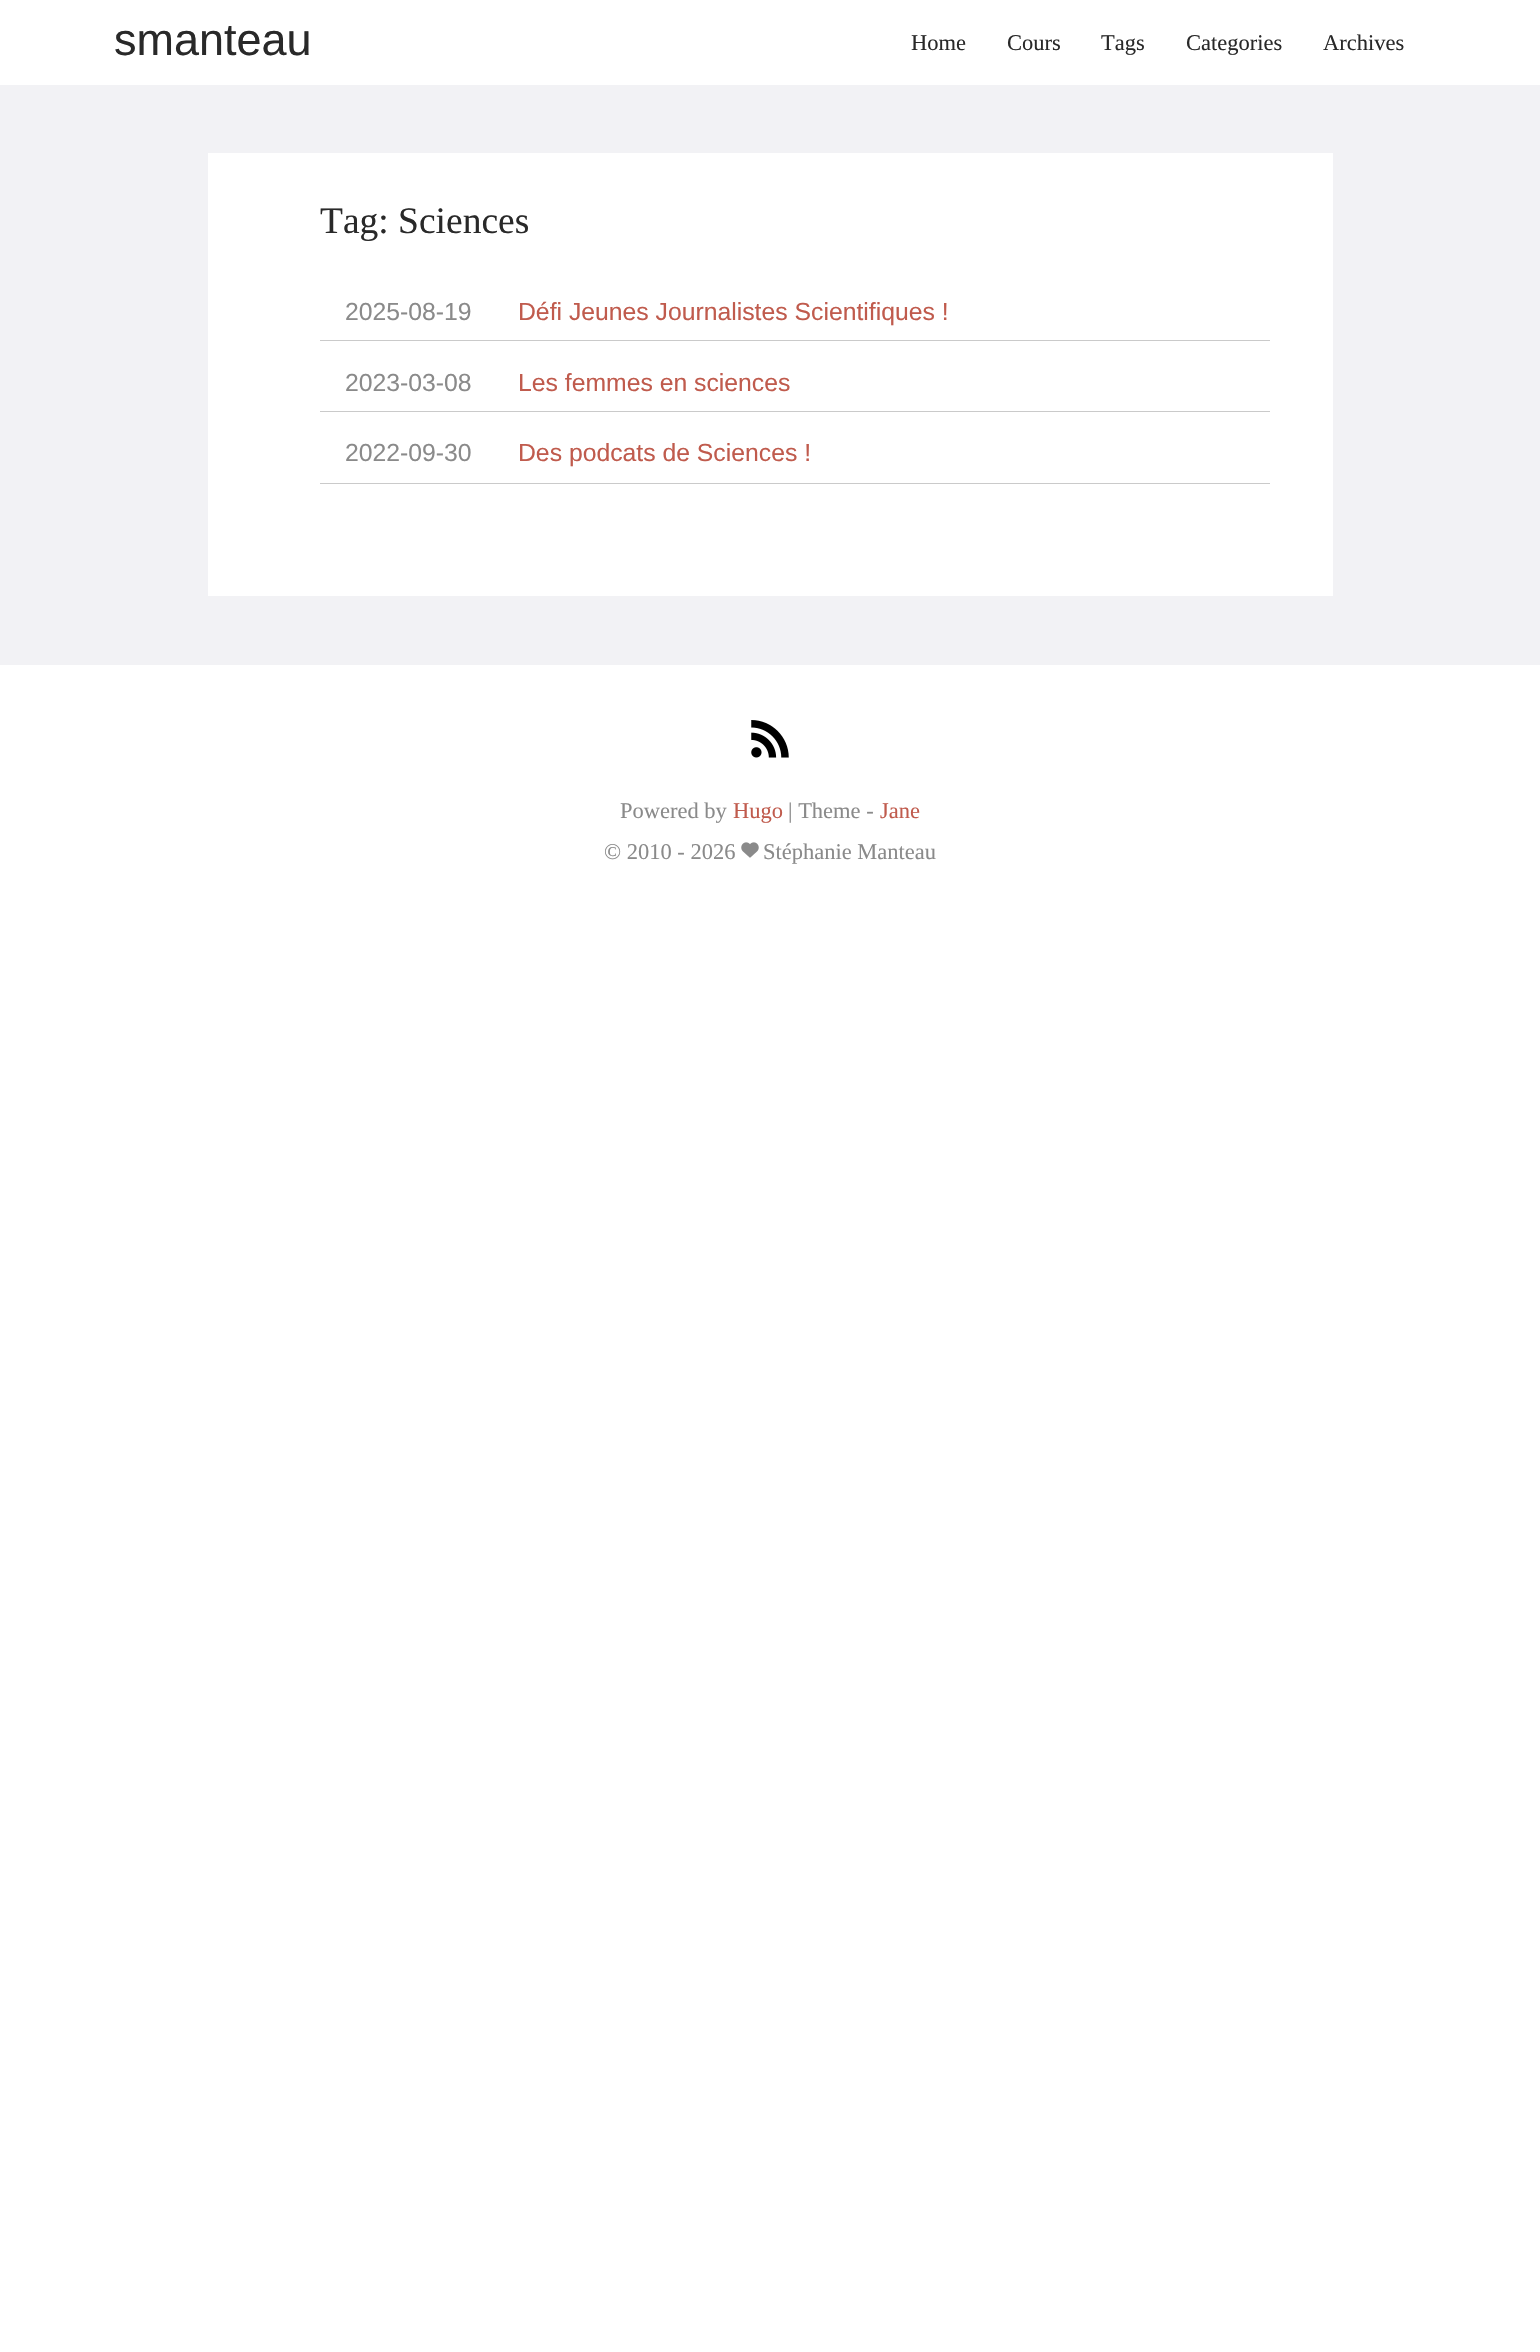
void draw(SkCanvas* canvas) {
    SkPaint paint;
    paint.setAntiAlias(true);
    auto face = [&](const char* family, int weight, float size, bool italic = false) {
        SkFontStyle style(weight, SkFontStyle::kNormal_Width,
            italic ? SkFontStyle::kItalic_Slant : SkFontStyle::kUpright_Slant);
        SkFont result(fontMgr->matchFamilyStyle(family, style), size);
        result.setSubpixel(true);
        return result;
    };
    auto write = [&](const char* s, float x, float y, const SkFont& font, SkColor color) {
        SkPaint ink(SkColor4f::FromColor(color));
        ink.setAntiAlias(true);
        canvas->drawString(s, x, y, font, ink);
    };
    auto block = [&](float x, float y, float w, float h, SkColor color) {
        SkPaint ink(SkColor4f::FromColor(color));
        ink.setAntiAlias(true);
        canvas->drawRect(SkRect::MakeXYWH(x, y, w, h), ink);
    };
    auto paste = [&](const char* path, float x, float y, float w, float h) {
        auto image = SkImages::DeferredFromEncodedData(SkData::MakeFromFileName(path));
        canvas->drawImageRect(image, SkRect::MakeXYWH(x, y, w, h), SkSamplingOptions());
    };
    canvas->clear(SK_ColorWHITE);
    auto kFont1 = face("Liberation Sans", 400, 45);
    write("smanteau", 114, 55, kFont1, SkColorSetRGB(41, 41, 41));
    auto kFont2 = face("Liberation Serif", 400, 22.5f);
    write("Home", 911, 50, kFont2, SkColorSetRGB(41, 41, 41));
    write("Cours", 1007, 50, kFont2, SkColorSetRGB(41, 41, 41));
    write("Tags", 1101, 50, kFont2, SkColorSetRGB(41, 41, 41));
    write("Categories", 1186, 50, kFont2, SkColorSetRGB(41, 41, 41));
    write("Archives", 1323, 50, kFont2, SkColorSetRGB(41, 41, 41));
    block(0, 85, 1540, 580, SkColorSetRGB(242, 242, 245));
    block(208, 153, 1125, 443, SK_ColorWHITE);
    auto kFont3 = face("Liberation Serif", 400, 37.5f);
    write("Tag: Sciences", 320, 233, kFont3, SkColorSetRGB(41, 41, 41));
    block(320, 340, 950, 1, SkColorSetRGB(202, 202, 202));
    auto kFont4 = face("Liberation Sans", 400, 24.75f);
    write("2025-08-19", 345, 320, kFont4, SkColorSetRGB(138, 138, 138));
    write("Défi Jeunes Journalistes Scientifiques !", 518, 320, kFont4, SkColorSetRGB(192, 91, 77));
    block(320, 411, 950, 1, SkColorSetRGB(202, 202, 202));
    write("2023-03-08", 345, 391, kFont4, SkColorSetRGB(138, 138, 138));
    write("Les femmes en sciences", 518, 391, kFont4, SkColorSetRGB(192, 91, 77));
    block(320, 483, 950, 1, SkColorSetRGB(202, 202, 202));
    write("2022-09-30", 345, 461, kFont4, SkColorSetRGB(138, 138, 138));
    write("Des podcats de Sciences !", 518, 461, kFont4, SkColorSetRGB(192, 91, 77));
    paste("pic1.png", 751, 720, 38, 38);
    write("Powered by", 620, 818, kFont2, SkColorSetRGB(138, 138, 138));
    write("Hugo", 733, 818, kFont2, SkColorSetRGB(192, 91, 77));
    write("| Theme -", 788, 818, kFont2, SkColorSetRGB(138, 138, 138));
    write("Jane", 880, 818, kFont2, SkColorSetRGB(192, 91, 77));
    write("© 2010 - 2026", 604, 859, kFont2, SkColorSetRGB(138, 138, 138));
    paste("pic2.png", 741, 842, 18, 16);
    write("Stéphanie Manteau", 763, 859, kFont2, SkColorSetRGB(138, 138, 138));
}
